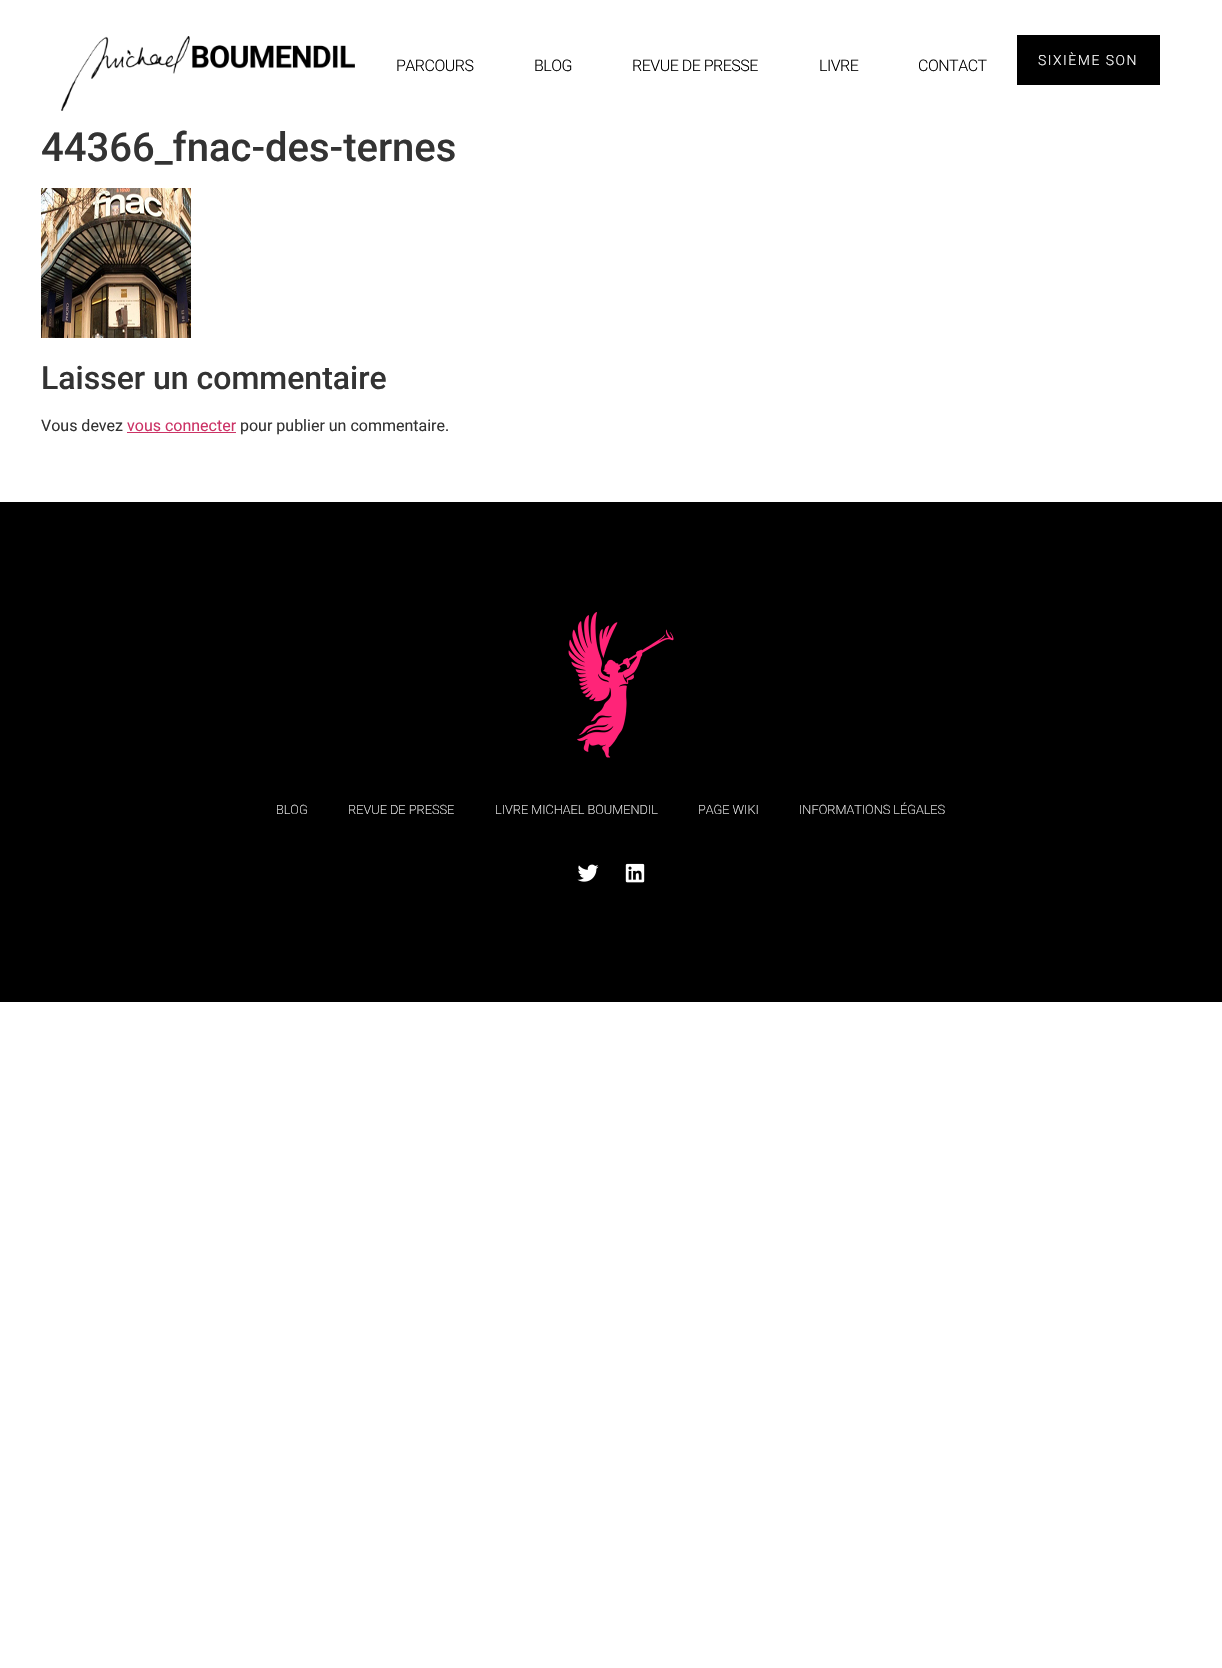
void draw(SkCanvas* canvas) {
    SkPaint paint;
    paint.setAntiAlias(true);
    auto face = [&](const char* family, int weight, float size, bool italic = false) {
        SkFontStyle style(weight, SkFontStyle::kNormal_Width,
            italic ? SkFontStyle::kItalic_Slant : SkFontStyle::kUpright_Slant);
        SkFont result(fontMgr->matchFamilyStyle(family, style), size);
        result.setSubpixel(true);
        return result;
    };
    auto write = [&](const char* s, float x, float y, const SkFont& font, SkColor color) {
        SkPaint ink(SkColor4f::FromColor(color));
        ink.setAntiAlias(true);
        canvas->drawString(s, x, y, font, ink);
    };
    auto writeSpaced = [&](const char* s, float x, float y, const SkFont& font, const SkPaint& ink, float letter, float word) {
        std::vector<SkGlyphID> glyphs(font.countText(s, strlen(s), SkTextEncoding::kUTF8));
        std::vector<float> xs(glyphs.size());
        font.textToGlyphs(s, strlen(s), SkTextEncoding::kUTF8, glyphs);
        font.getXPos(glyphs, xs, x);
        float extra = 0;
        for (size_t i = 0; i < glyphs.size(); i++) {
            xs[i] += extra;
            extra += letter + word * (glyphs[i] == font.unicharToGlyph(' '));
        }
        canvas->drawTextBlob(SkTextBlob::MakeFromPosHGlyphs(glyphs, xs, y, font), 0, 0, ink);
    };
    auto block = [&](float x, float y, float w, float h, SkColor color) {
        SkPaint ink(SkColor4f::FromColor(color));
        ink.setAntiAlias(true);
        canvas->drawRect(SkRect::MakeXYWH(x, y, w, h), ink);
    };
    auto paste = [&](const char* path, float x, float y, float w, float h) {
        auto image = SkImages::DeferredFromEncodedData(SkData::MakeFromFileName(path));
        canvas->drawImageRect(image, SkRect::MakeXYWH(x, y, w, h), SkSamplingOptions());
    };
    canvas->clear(SK_ColorWHITE);
    paste("pic1.png", 61, 36, 294, 75);
    auto kFont1 = face("Roboto", 300, 16);
    paint.setColor(SK_ColorBLACK);
    writeSpaced("PARCOURS", 396, 71, kFont1, paint, -0.5f, 0);
    writeSpaced("BLOG", 534, 71, kFont1, paint, -0.5f, 0);
    writeSpaced("REVUE DE PRESSE", 632, 71, kFont1, paint, -0.5f, 0);
    writeSpaced("LIVRE", 819, 71, kFont1, paint, -0.5f, 0);
    writeSpaced("CONTACT", 918, 71, kFont1, paint, -0.5f, 0);
    block(1017, 35, 143, 50, SK_ColorBLACK);
    auto kFont2 = face("Roboto", 300, 14);
    paint.setColor(SK_ColorWHITE);
    writeSpaced("SIXIÈME SON", 1038, 65, kFont2, paint, 1.5f, 0);
    auto kFont3 = face("Roboto", 500, 40);
    write("44366_fnac-des-ternes", 41, 161, kFont3, SkColorSetRGB(51, 51, 51));
    paste("pic2.png", 41, 188, 150, 150);
    auto kFont4 = face("Roboto", 500, 32);
    write("Laisser un commentaire", 41, 389, kFont4, SkColorSetRGB(51, 51, 51));
    auto kFont5 = face("Roboto", 400, 16);
    write("Vous devez", 41, 431, kFont5, SkColorSetRGB(51, 51, 51));
    write("vous connecter", 127, 431, kFont5, SkColorSetRGB(204, 51, 102));
    block(127, 432, 109, 1, SkColorSetRGB(204, 51, 102));
    write("pour publier un commentaire.", 240, 431, kFont5, SkColorSetRGB(51, 51, 51));
    block(0, 502, 1222, 500, SK_ColorBLACK);
    paste("pic3.png", 568, 612, 106, 146);
    auto kFont6 = face("Roboto", 200, 12.75f);
    write("BLOG", 276, 814, kFont6, SK_ColorWHITE);
    write("REVUE DE PRESSE", 348, 814, kFont6, SK_ColorWHITE);
    write("LIVRE MICHAEL BOUMENDIL", 495, 814, kFont6, SK_ColorWHITE);
    write("PAGE WIKI", 698, 814, kFont6, SK_ColorWHITE);
    write("INFORMATIONS LÉGALES", 799, 814, kFont6, SK_ColorWHITE);
    paste("pic4.png", 577, 864, 22, 18);
    paste("pic5.png", 625, 863, 20, 20);
}
